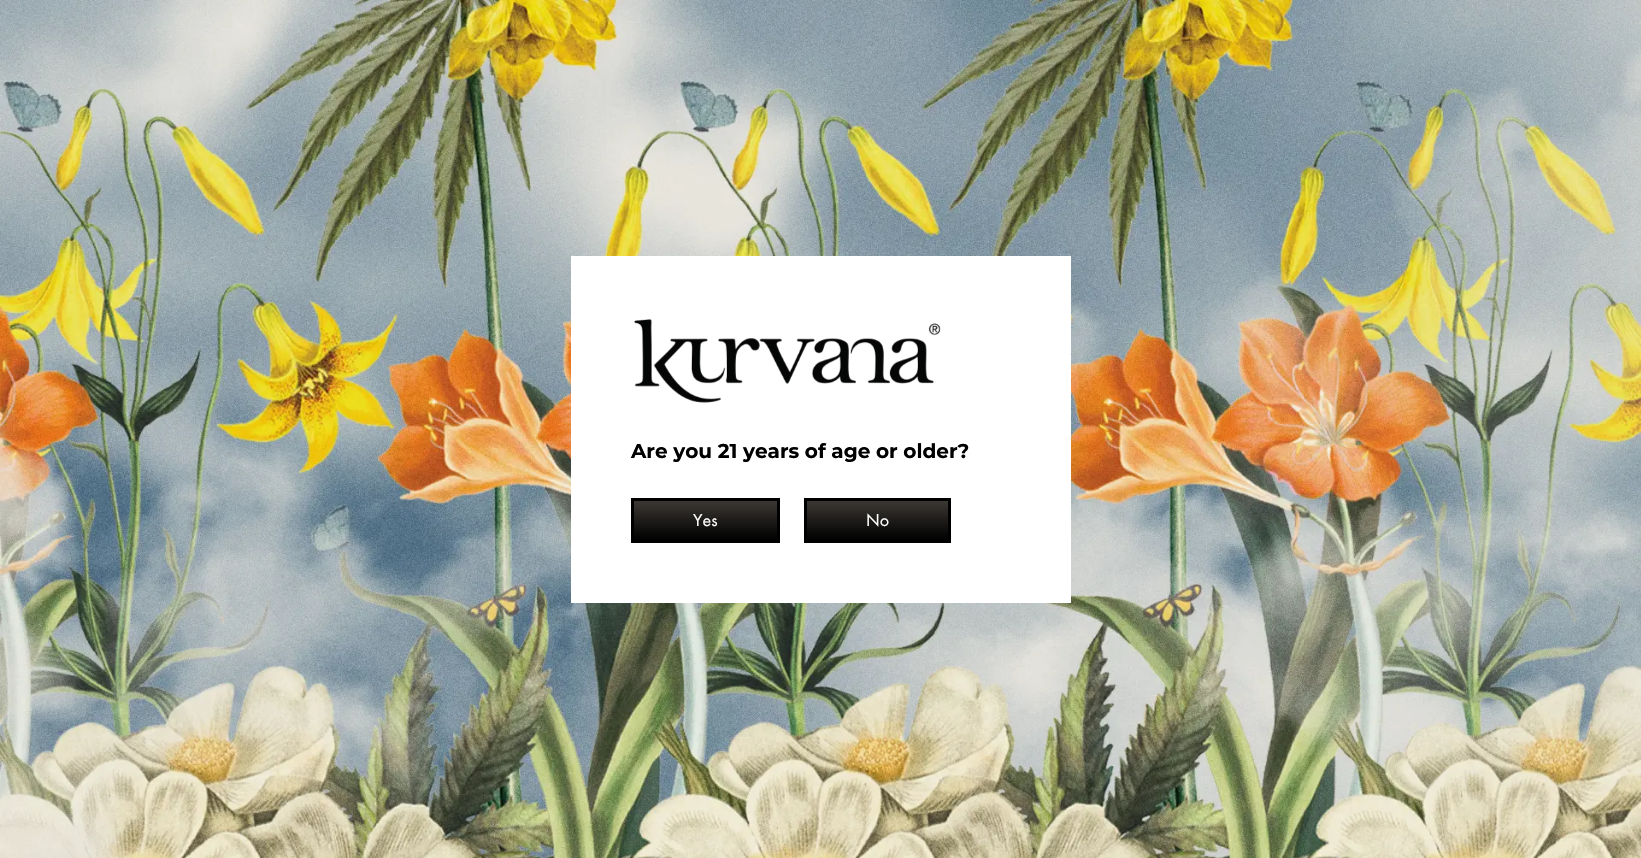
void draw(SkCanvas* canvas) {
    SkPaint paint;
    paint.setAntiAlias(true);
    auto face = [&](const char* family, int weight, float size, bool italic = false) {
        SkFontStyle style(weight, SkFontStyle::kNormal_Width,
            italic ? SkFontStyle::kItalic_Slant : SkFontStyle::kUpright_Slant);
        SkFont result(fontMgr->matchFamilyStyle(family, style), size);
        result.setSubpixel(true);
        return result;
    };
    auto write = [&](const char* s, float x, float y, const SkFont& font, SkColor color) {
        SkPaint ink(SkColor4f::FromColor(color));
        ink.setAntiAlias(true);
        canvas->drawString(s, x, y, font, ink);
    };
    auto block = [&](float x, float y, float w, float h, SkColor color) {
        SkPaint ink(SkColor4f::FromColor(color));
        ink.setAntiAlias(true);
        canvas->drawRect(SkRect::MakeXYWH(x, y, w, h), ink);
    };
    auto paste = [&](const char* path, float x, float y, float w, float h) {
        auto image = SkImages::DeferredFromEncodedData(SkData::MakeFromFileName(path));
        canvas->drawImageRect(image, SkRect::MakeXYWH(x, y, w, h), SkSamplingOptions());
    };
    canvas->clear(SK_ColorWHITE);
    paste("pic1.png", 0, 0, 1641, 858);
    block(571, 256, 500, 347, SK_ColorWHITE);
    paste("pic2.png", 634, 319, 307, 84);
    auto kFont1 = face("Montserrat", 700, 20);
    write("Are you 21 years of age or older?", 631, 458, kFont1, SK_ColorBLACK);
    {
        const SkColor colors[] = {SK_ColorBLACK, SkColorSetRGB(61, 57, 53)};
        const float stops[] = {0, 1};
        const SkPoint ends[] = {{706, 540}, {706, 500}};
        paint.setShader(SkGradientShader::MakeLinear(ends, colors, stops, 2, SkTileMode::kClamp));
        paint.setAlpha(255);
    }
    canvas->drawRect(SkRect::MakeXYWH(634, 501, 143, 39), paint);
    paint.setStyle(SkPaint::kStroke_Style);
    paint.setStrokeWidth(3);
    paint.setShader(nullptr);
    paint.setColor(SK_ColorBLACK);
    canvas->drawRect(SkRect::MakeXYWH(632.5f, 499.5f, 146, 42), paint);
    auto kFont2 = face("Futura PT", 400, 18);
    write("Yes", 693, 526, kFont2, SK_ColorWHITE);
    paint.setStyle(SkPaint::kFill_Style);
    {
        const SkColor colors[] = {SK_ColorBLACK, SkColorSetRGB(61, 57, 53)};
        const float stops[] = {0, 1};
        const SkPoint ends[] = {{878, 540}, {878, 500}};
        paint.setShader(SkGradientShader::MakeLinear(ends, colors, stops, 2, SkTileMode::kClamp));
        paint.setAlpha(255);
    }
    canvas->drawRect(SkRect::MakeXYWH(807, 501, 141, 39), paint);
    paint.setStyle(SkPaint::kStroke_Style);
    paint.setShader(nullptr);
    paint.setColor(SK_ColorBLACK);
    canvas->drawRect(SkRect::MakeXYWH(805.5f, 499.5f, 144, 42), paint);
    write("No", 866, 526, kFont2, SK_ColorWHITE);
}
